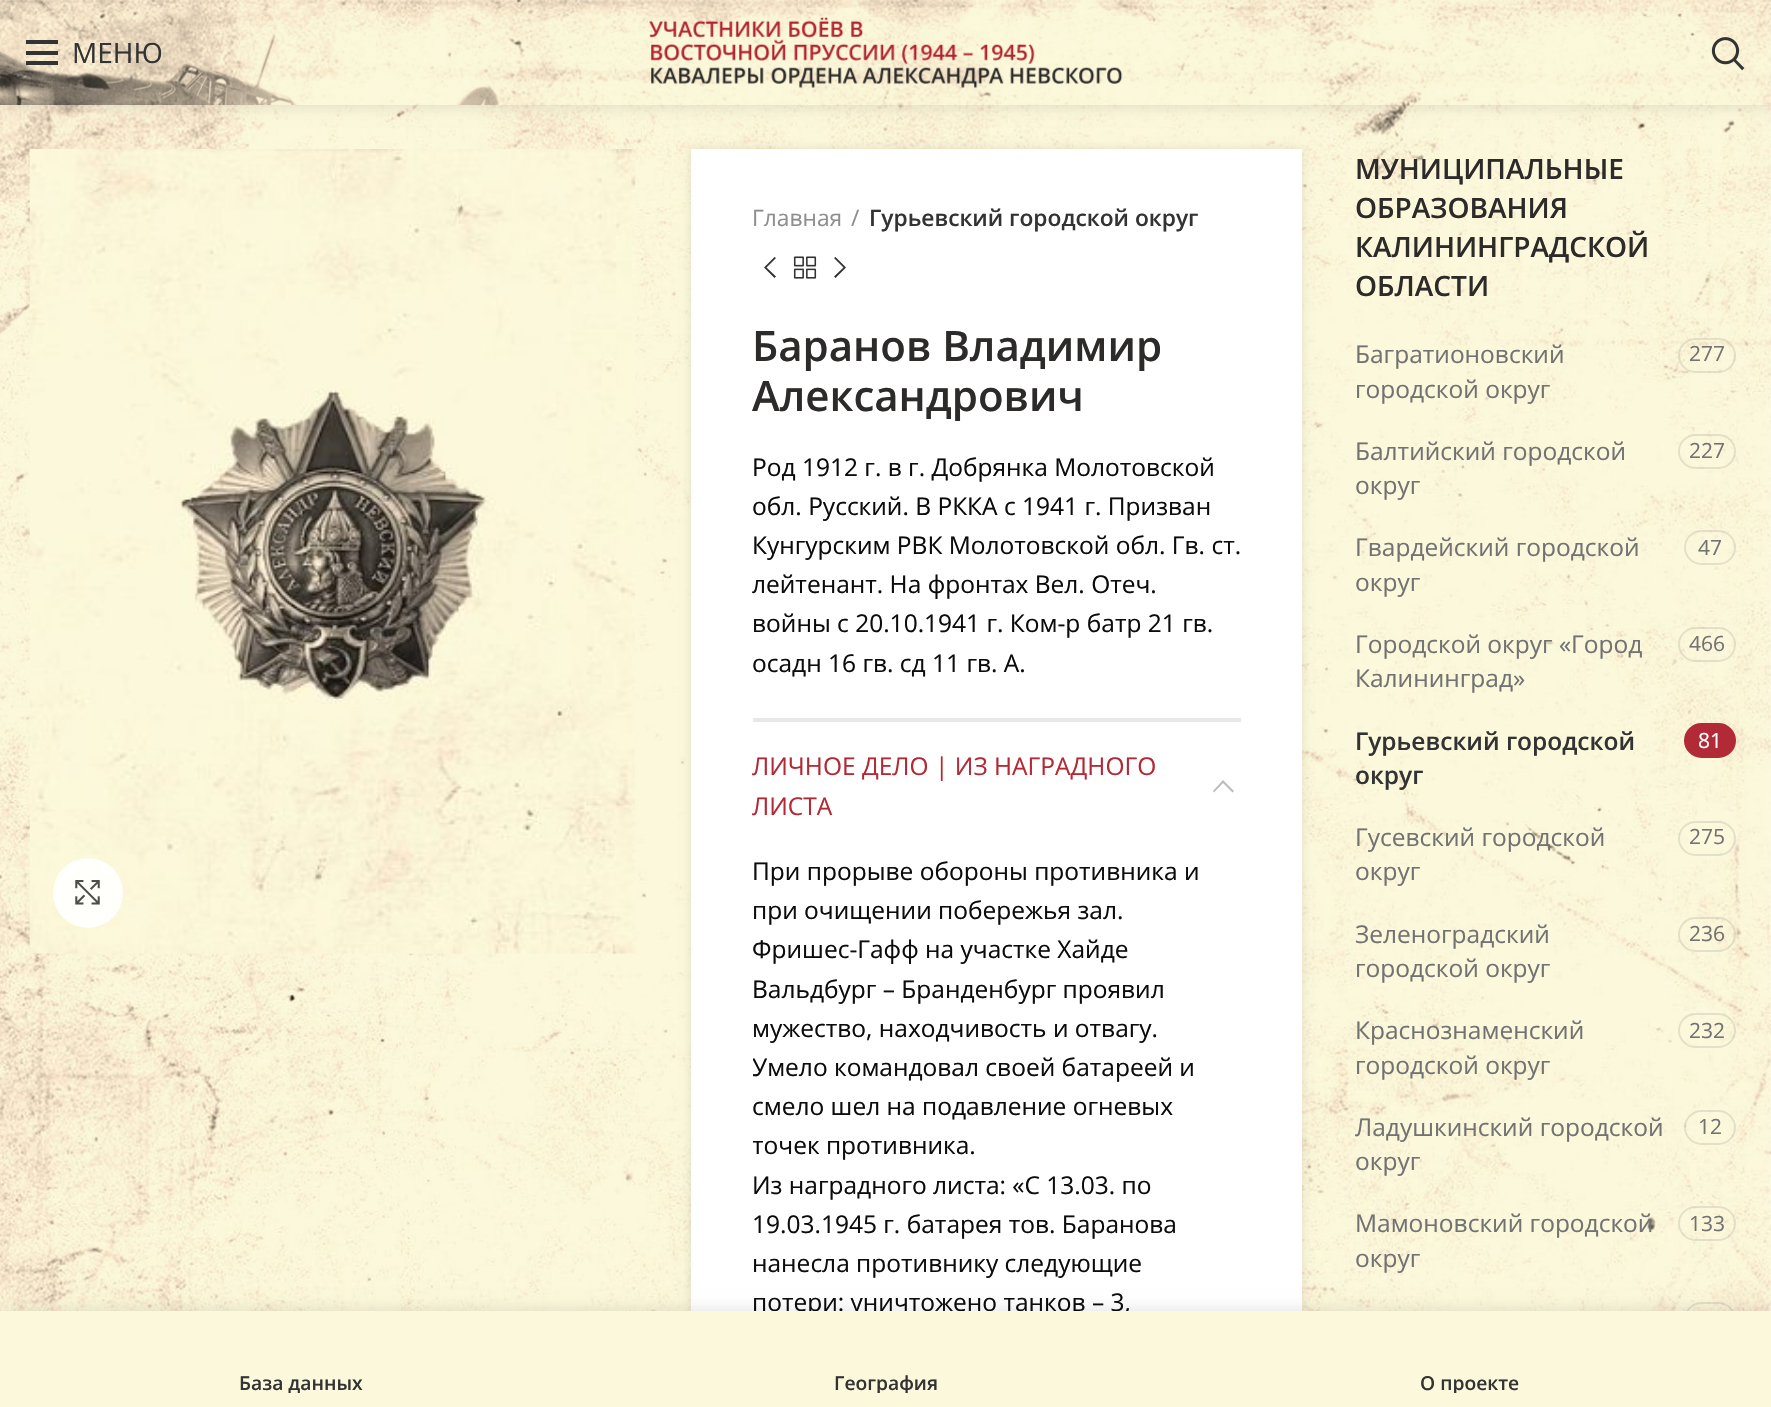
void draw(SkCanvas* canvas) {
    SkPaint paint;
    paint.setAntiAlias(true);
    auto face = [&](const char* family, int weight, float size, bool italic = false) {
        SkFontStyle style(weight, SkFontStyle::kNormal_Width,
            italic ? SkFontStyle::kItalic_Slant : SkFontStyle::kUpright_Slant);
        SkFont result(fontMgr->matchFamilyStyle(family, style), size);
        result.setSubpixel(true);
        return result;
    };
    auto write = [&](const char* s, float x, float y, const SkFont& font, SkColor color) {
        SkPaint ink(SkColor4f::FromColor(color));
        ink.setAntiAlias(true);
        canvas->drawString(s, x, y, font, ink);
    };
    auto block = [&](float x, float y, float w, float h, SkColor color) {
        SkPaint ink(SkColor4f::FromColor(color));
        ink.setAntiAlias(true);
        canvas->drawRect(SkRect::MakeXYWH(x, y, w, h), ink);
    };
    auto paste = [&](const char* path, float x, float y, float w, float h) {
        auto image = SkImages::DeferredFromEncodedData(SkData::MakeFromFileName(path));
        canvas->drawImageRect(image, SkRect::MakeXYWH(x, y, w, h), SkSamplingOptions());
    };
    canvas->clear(SK_ColorWHITE);
    paste("pic4.png", 0, 105, 1771, 1206);
    paint.setColor(SkColorSetARGB(26, 0, 0, 0));
    paint.setMaskFilter(SkMaskFilter::MakeBlur(kNormal_SkBlurStyle, 7));
    canvas->drawRect(SkRect::MakeXYWH(0, 2, 1771, 105), paint);
    paint.setMaskFilter(nullptr);
    paste("pic1.png", 0, 0, 1771, 105);
    block(26, 51, 32, 4, SkColorSetRGB(51, 51, 51));
    block(26, 40, 32, 4, SkColorSetRGB(51, 51, 51));
    block(26, 61, 32, 4, SkColorSetRGB(51, 51, 51));
    auto kFont1 = face("Open Sans", 400, 28);
    write("МЕНЮ", 72, 63, kFont1, SkColorSetRGB(51, 51, 51));
    paste("pic2.png", 649, 17, 474, 71);
    paste("pic3.png", 1711, 37, 34, 34);
    paste("pic5.png", 29, 149, 607, 805);
    paint.setColor(SkColorSetARGB(230, 255, 255, 255));
    canvas->drawCircle(88, 893, 35, paint);
    paste("pic6.png", 75, 880, 25, 25);
    paint.setColor(SkColorSetARGB(26, 0, 0, 0));
    paint.setMaskFilter(SkMaskFilter::MakeBlur(kNormal_SkBlurStyle, 4.5f));
    canvas->drawRect(SkRect::MakeXYWH(691, 149, 611, 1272), paint);
    paint.setMaskFilter(nullptr);
    block(691, 149, 611, 1162, SK_ColorWHITE);
    auto kFont2 = face("Open Sans", 400, 22.75f);
    write("Главная", 752, 226, kFont2, SkColorSetRGB(142, 142, 142));
    write("/", 851, 226, kFont2, SkColorSetRGB(142, 142, 142));
    auto kFont3 = face("Open Sans", 600, 22.75f);
    write("Гурьевский городской округ", 869, 226, kFont3, SkColorSetRGB(51, 51, 51));
    paint.setColor(SkColorSetRGB(51, 51, 51));
    canvas->drawPath(SkPathBuilder().moveTo(776, 258).lineTo(766.5f, 267.5f).lineTo(776, 276.5f).lineTo(774.5f, 278).lineTo(764, 267.5f).lineTo(774.5f, 257).close().detach(), paint);
    paste("pic7.png", 793, 256, 24, 23);
    canvas->drawPath(SkPathBuilder().moveTo(835.5f, 257).lineTo(846, 267.5f).lineTo(835.5f, 278).lineTo(834, 276.5f).lineTo(843.5f, 267.5f).lineTo(834, 258).close().detach(), paint);
    auto kFont4 = face("Open Sans", 600, 42);
    write("Баранов Владимир", 752, 361, kFont4, SkColorSetRGB(45, 42, 42));
    write("Александрович", 752, 411, kFont4, SkColorSetRGB(45, 42, 42));
    auto kFont5 = face("Open Sans", 400, 24.5f);
    write("Род 1912 г. в г. Добрянка Молотовской", 752, 476, kFont5, SkColorSetRGB(12, 12, 12));
    write("обл. Русский. В РККА с 1941 г. Призван", 752, 515, kFont5, SkColorSetRGB(12, 12, 12));
    write("Кунгурским РВК Молотовской обл. Гв. ст.", 752, 554, kFont5, SkColorSetRGB(12, 12, 12));
    write("лейтенант. На фронтах Вел. Отеч.", 752, 593, kFont5, SkColorSetRGB(12, 12, 12));
    write("войны с 20.10.1941 г. Ком-р батр 21 гв.", 752, 632, kFont5, SkColorSetRGB(12, 12, 12));
    write("осадн 16 гв. сд 11 гв. А.", 752, 672, kFont5, SkColorSetRGB(12, 12, 12));
    block(753, 718, 488, 4, SkColorSetRGB(232, 232, 232));
    write("ЛИЧНОЕ ДЕЛО | ИЗ НАГРАДНОГО", 752, 775, kFont5, SkColorSetRGB(178, 42, 53));
    paint.setColor(SkColorSetRGB(187, 187, 187));
    canvas->drawPath(SkPathBuilder().moveTo(1214, 792.5f).lineTo(1213, 791).lineTo(1223, 780).lineTo(1234, 791).lineTo(1232.5f, 792.5f).lineTo(1223, 783).close().detach(), paint);
    write("ЛИСТА", 752, 815, kFont5, SkColorSetRGB(178, 42, 53));
    write("При прорыве обороны противника и", 752, 880, kFont5, SkColorSetRGB(12, 12, 12));
    write("при очищении побережья зал.", 752, 919, kFont5, SkColorSetRGB(12, 12, 12));
    write("Фришес-Гафф на участке Хайде", 752, 958, kFont5, SkColorSetRGB(12, 12, 12));
    write("Вальдбург – Бранденбург проявил", 752, 998, kFont5, SkColorSetRGB(12, 12, 12));
    write("мужество, находчивость и отвагу.", 752, 1037, kFont5, SkColorSetRGB(12, 12, 12));
    canvas->save();
    canvas->clipRect(SkRect::MakeXYWH(753, 852, 488, 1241));
    write("Умело командовал своей батареей и", 752, 1076, kFont5, SkColorSetRGB(12, 12, 12));
    canvas->restore();
    write("смело шел на подавление огневых", 752, 1115, kFont5, SkColorSetRGB(12, 12, 12));
    canvas->save();
    canvas->clipRect(SkRect::MakeXYWH(753, 852, 488, 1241));
    write("точек противника.", 752, 1154, kFont5, SkColorSetRGB(12, 12, 12));
    canvas->restore();
    write("Из наградного листа: «С 13.03. по", 752, 1194, kFont5, SkColorSetRGB(12, 12, 12));
    write("19.03.1945 г. батарея тов. Баранова", 752, 1233, kFont5, SkColorSetRGB(12, 12, 12));
    write("нанесла противнику следующие", 752, 1272, kFont5, SkColorSetRGB(12, 12, 12));
    write("потери: уничтожено танков – 3,", 752, 1311, kFont5, SkColorSetRGB(12, 12, 12));
    auto kFont6 = face("Open Sans", 600, 28);
    write("МУНИЦИПАЛЬНЫЕ", 1355, 179, kFont6, SkColorSetRGB(45, 42, 42));
    write("ОБРАЗОВАНИЯ", 1355, 218, kFont6, SkColorSetRGB(45, 42, 42));
    write("КАЛИНИНГРАДСКОЙ", 1355, 257, kFont6, SkColorSetRGB(45, 42, 42));
    write("ОБЛАСТИ", 1355, 296, kFont6, SkColorSetRGB(45, 42, 42));
    write("Багратионовский", 1355, 363, kFont5, SkColorSetRGB(114, 114, 114));
    write("городской округ", 1355, 398, kFont5, SkColorSetRGB(114, 114, 114));
    paint.setStyle(SkPaint::kStroke_Style);
    paint.setStrokeWidth(2);
    paint.setColor(SkColorSetARGB(51, 129, 129, 129));
    canvas->drawRoundRect(SkRect::MakeXYWH(1679, 339, 56, 33), 16.5f, 16.5f, paint);
    auto kFont7 = face("Open Sans", 400, 21);
    write("277", 1689, 361, kFont7, SkColorSetRGB(114, 114, 114));
    write("Балтийский городской", 1355, 460, kFont5, SkColorSetRGB(114, 114, 114));
    write("округ", 1355, 494, kFont5, SkColorSetRGB(114, 114, 114));
    canvas->drawRoundRect(SkRect::MakeXYWH(1679, 435, 56, 33), 16.5f, 16.5f, paint);
    write("227", 1689, 458, kFont7, SkColorSetRGB(114, 114, 114));
    write("Гвардейский городской", 1355, 556, kFont5, SkColorSetRGB(114, 114, 114));
    write("округ", 1355, 591, kFont5, SkColorSetRGB(114, 114, 114));
    canvas->drawRoundRect(SkRect::MakeXYWH(1685, 531, 50, 33), 16.5f, 16.5f, paint);
    write("47", 1698, 555, kFont7, SkColorSetRGB(114, 114, 114));
    write("Городской округ «Город", 1355, 653, kFont5, SkColorSetRGB(114, 114, 114));
    write("Калининград»", 1355, 687, kFont5, SkColorSetRGB(114, 114, 114));
    canvas->drawRoundRect(SkRect::MakeXYWH(1679, 628, 56, 33), 16.5f, 16.5f, paint);
    write("466", 1689, 651, kFont7, SkColorSetRGB(114, 114, 114));
    auto kFont8 = face("Open Sans", 600, 24.5f);
    write("Гурьевский городской", 1355, 750, kFont8, SkColorSetRGB(51, 51, 51));
    write("округ", 1355, 784, kFont8, SkColorSetRGB(51, 51, 51));
    paint.setStyle(SkPaint::kFill_Style);
    paint.setColor(SkColorSetRGB(178, 42, 53));
    canvas->drawRoundRect(SkRect::MakeXYWH(1685, 724, 50, 33), 16.5f, 16.5f, paint);
    paint.setStyle(SkPaint::kStroke_Style);
    canvas->drawRoundRect(SkRect::MakeXYWH(1685, 724, 50, 33), 16.5f, 16.5f, paint);
    write("81", 1698, 748, kFont7, SK_ColorWHITE);
    write("Гусевский городской", 1355, 846, kFont5, SkColorSetRGB(114, 114, 114));
    write("округ", 1355, 880, kFont5, SkColorSetRGB(114, 114, 114));
    paint.setColor(SkColorSetARGB(51, 129, 129, 129));
    canvas->drawRoundRect(SkRect::MakeXYWH(1679, 822, 56, 33), 16.5f, 16.5f, paint);
    write("275", 1689, 844, kFont7, SkColorSetRGB(114, 114, 114));
    write("Зеленоградский", 1355, 943, kFont5, SkColorSetRGB(114, 114, 114));
    write("городской округ", 1355, 977, kFont5, SkColorSetRGB(114, 114, 114));
    canvas->drawRoundRect(SkRect::MakeXYWH(1679, 918, 56, 33), 16.5f, 16.5f, paint);
    write("236", 1689, 941, kFont7, SkColorSetRGB(114, 114, 114));
    write("Краснознаменский", 1355, 1039, kFont5, SkColorSetRGB(114, 114, 114));
    write("городской округ", 1355, 1074, kFont5, SkColorSetRGB(114, 114, 114));
    canvas->drawRoundRect(SkRect::MakeXYWH(1679, 1014, 56, 33), 16.5f, 16.5f, paint);
    write("232", 1689, 1038, kFont7, SkColorSetRGB(114, 114, 114));
    write("Ладушкинский городской", 1355, 1136, kFont5, SkColorSetRGB(114, 114, 114));
    write("округ", 1355, 1170, kFont5, SkColorSetRGB(114, 114, 114));
    canvas->drawRoundRect(SkRect::MakeXYWH(1685, 1111, 50, 33), 16.5f, 16.5f, paint);
    write("12", 1698, 1134, kFont7, SkColorSetRGB(114, 114, 114));
    write("Мамоновский городской", 1355, 1232, kFont5, SkColorSetRGB(114, 114, 114));
    write("округ", 1355, 1267, kFont5, SkColorSetRGB(114, 114, 114));
    canvas->drawRoundRect(SkRect::MakeXYWH(1679, 1207, 56, 33), 16.5f, 16.5f, paint);
    write("133", 1689, 1231, kFont7, SkColorSetRGB(114, 114, 114));
    canvas->drawRoundRect(SkRect::MakeXYWH(1685, 1303, 50, 33), 16.5f, 16.5f, paint);
    paint.setStyle(SkPaint::kFill_Style);
    paint.setColor(SkColorSetARGB(31, 0, 0, 0));
    paint.setMaskFilter(SkMaskFilter::MakeBlur(kNormal_SkBlurStyle, 8));
    canvas->drawRect(SkRect::MakeXYWH(0, 1311, 1771, 96), paint);
    paint.setMaskFilter(nullptr);
    block(0, 1311, 1771, 96, SkColorSetRGB(252, 248, 219));
    canvas->save();
    canvas->clipRect(SkRect::MakeXYWH(26, 1370, 550, 23));
    auto kFont9 = face("Open Sans", 600, 19.25f);
    write("База данных", 239, 1390, kFont9, SkColorSetRGB(51, 51, 51));
    canvas->restore();
    canvas->save();
    canvas->clipRect(SkRect::MakeXYWH(611, 1370, 549, 23));
    write("География", 834, 1390, kFont9, SkColorSetRGB(51, 51, 51));
    canvas->restore();
    canvas->save();
    canvas->clipRect(SkRect::MakeXYWH(1195, 1370, 550, 23));
    write("О проекте", 1420, 1390, kFont9, SkColorSetRGB(51, 51, 51));
    canvas->restore();
}
